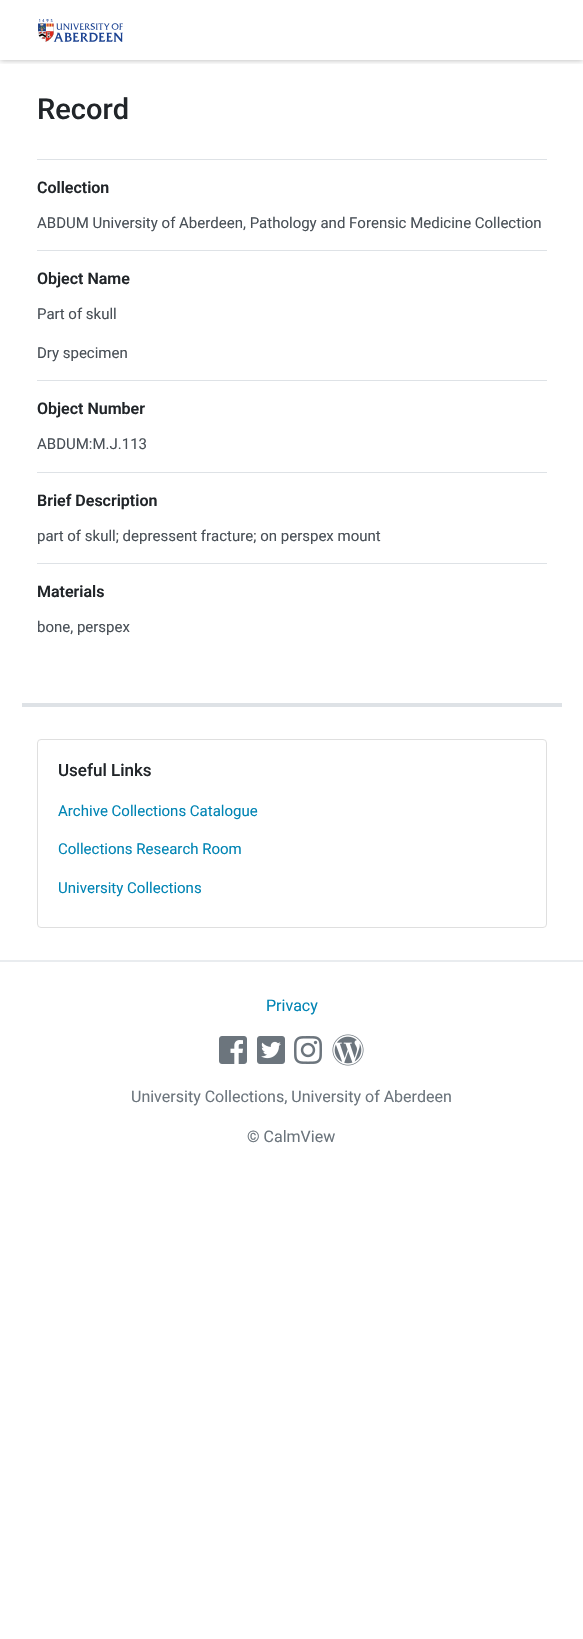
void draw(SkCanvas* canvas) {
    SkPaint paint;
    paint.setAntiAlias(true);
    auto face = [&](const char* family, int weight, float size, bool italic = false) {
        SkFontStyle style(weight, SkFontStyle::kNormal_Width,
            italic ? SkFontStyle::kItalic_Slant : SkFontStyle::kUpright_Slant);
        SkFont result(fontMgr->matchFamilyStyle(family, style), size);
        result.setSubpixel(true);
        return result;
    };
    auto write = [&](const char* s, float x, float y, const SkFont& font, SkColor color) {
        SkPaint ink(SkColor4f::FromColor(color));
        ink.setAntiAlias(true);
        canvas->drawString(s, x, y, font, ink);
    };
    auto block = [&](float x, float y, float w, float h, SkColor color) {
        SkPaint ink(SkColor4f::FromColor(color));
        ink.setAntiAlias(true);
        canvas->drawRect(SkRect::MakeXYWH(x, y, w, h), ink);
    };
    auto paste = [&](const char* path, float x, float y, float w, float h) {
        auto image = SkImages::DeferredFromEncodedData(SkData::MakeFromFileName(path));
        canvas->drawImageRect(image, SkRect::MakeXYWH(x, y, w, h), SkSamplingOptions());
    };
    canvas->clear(SK_ColorWHITE);
    canvas->save();
    canvas->clipRect(SkRect::MakeXYWH(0, 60, 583, 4));
    paint.setColor(SkColorSetARGB(77, 0, 0, 0));
    paint.setMaskFilter(SkMaskFilter::MakeBlur(kNormal_SkBlurStyle, 3));
    canvas->drawRect(SkRect::MakeXYWH(0, 0, 583, 60), paint);
    paint.setMaskFilter(nullptr);
    canvas->restore();
    paste("pic1.png", 38, 19, 85, 23);
    auto kFont1 = face("Roboto", 500, 29);
    write("Record", 37, 119, kFont1, SkColorSetRGB(33, 37, 41));
    block(37, 159, 510, 1, SkColorSetRGB(222, 226, 230));
    auto kFont2 = face("Roboto", 600, 16);
    write("Collection", 37, 193, kFont2, SkColorSetRGB(33, 37, 41));
    auto kFont3 = face("Roboto", 400, 15);
    write("ABDUM University of Aberdeen, Pathology and Forensic Medicine Collection", 37, 228, kFont3, SkColorSetRGB(73, 80, 87));
    block(37, 250, 510, 1, SkColorSetRGB(222, 226, 230));
    write("Object Name", 37, 284, kFont2, SkColorSetRGB(33, 37, 41));
    write("Part of skull", 37, 319, kFont3, SkColorSetRGB(73, 80, 87));
    write("Dry specimen", 37, 358, kFont3, SkColorSetRGB(73, 80, 87));
    block(37, 380, 510, 1, SkColorSetRGB(222, 226, 230));
    write("Object Number", 37, 414, kFont2, SkColorSetRGB(33, 37, 41));
    write("ABDUM:M.J.113", 37, 449, kFont3, SkColorSetRGB(73, 80, 87));
    block(37, 472, 510, 1, SkColorSetRGB(222, 226, 230));
    write("Brief Description", 37, 506, kFont2, SkColorSetRGB(33, 37, 41));
    write("part of skull; depressent fracture; on perspex mount", 37, 541, kFont3, SkColorSetRGB(73, 80, 87));
    block(37, 563, 510, 1, SkColorSetRGB(222, 226, 230));
    write("Materials", 37, 597, kFont2, SkColorSetRGB(33, 37, 41));
    write("bone, perspex", 37, 632, kFont3, SkColorSetRGB(73, 80, 87));
    block(22, 703, 540, 4, SkColorSetRGB(222, 226, 230));
    paint.setStyle(SkPaint::kStroke_Style);
    paint.setStrokeWidth(1);
    paint.setColor(SkColorSetRGB(223, 223, 223));
    canvas->drawRoundRect(SkRect::MakeXYWH(37.5f, 739.5f, 509, 188), 3.5f, 3.5f, paint);
    auto kFont4 = face("Roboto", 500, 17);
    write("Useful Links", 58, 776, kFont4, SkColorSetRGB(33, 37, 41));
    write("Archive Collections Catalogue", 58, 816, kFont3, SkColorSetRGB(0, 132, 180));
    write("Collections Research Room", 58, 854, kFont3, SkColorSetRGB(0, 132, 180));
    write("University Collections", 58, 893, kFont3, SkColorSetRGB(0, 132, 180));
    block(0, 960, 583, 2, SkColorSetRGB(233, 236, 239));
    auto kFont5 = face("Roboto", 400, 16);
    write("Privacy", 266, 1011, kFont5, SkColorSetRGB(0, 132, 180));
    paste("pic2.png", 219, 1036, 28, 28);
    paste("pic3.png", 257, 1036, 28, 28);
    paste("pic4.png", 294, 1036, 28, 28);
    paste("pic5.png", 332, 1034, 32, 32);
    write("University Collections, University of Aberdeen", 131, 1102, kFont5, SkColorSetRGB(108, 117, 125));
    write("© CalmView", 247, 1142, kFont5, SkColorSetRGB(108, 117, 125));
}
